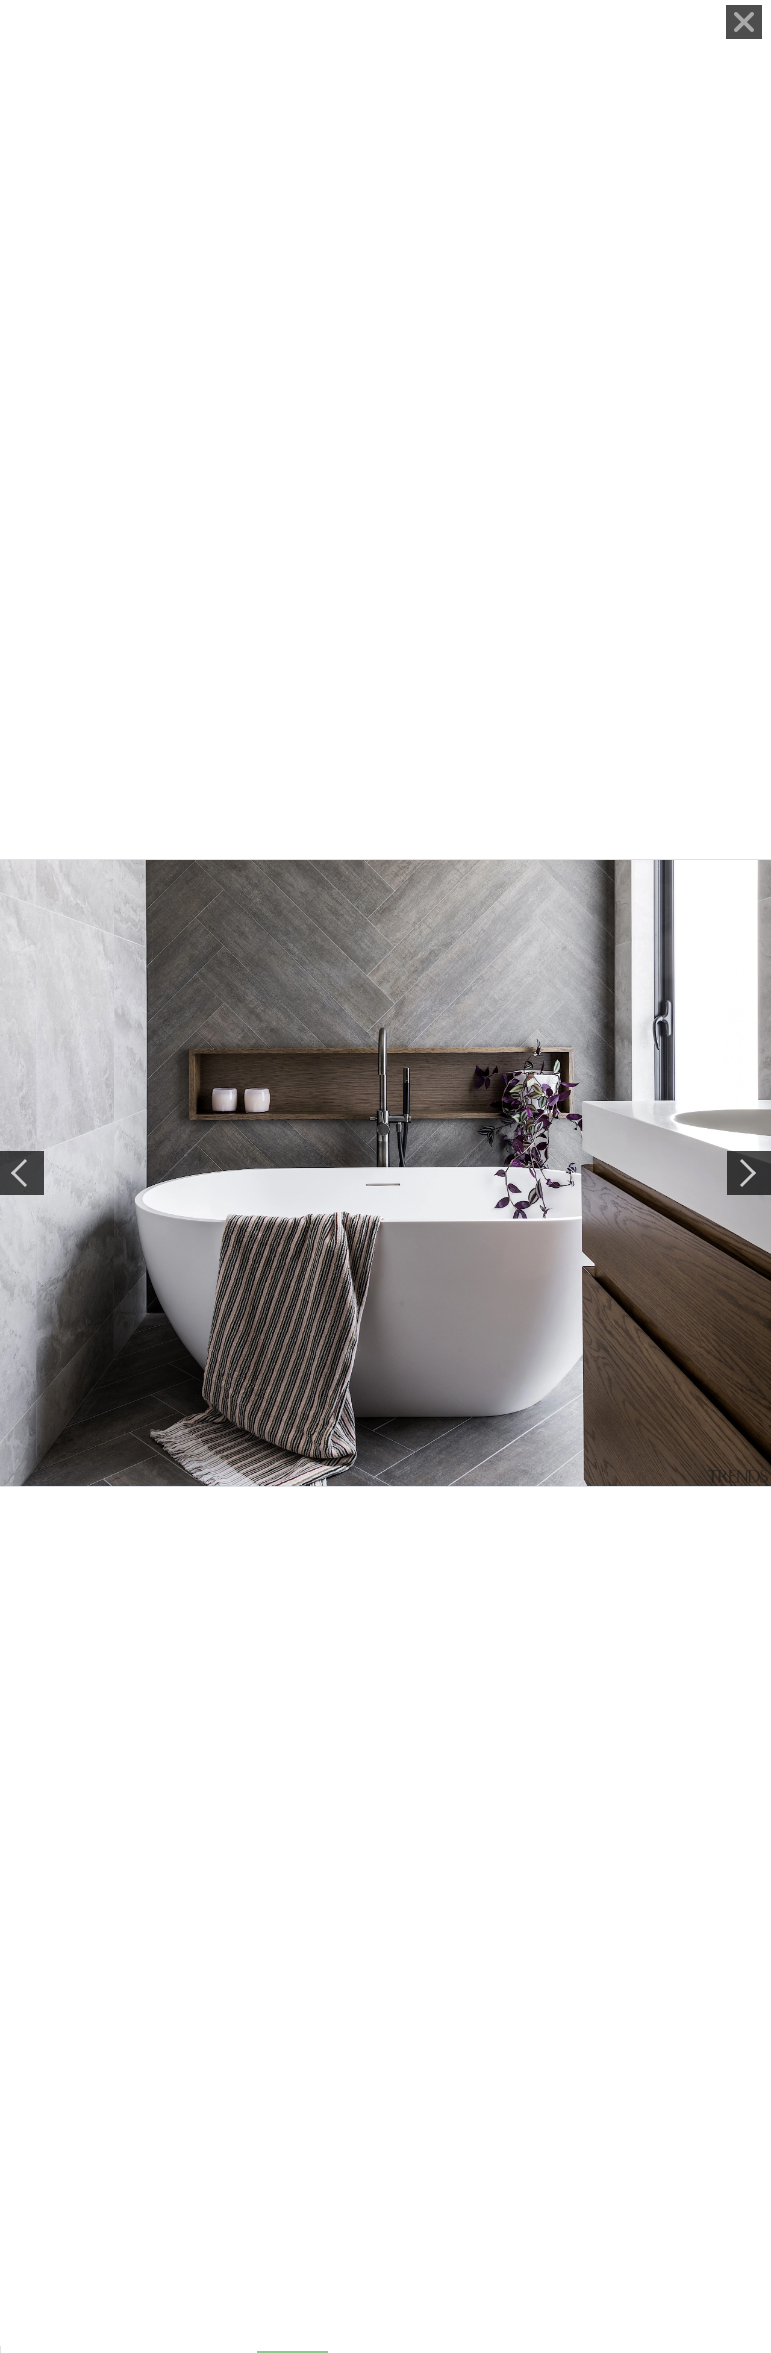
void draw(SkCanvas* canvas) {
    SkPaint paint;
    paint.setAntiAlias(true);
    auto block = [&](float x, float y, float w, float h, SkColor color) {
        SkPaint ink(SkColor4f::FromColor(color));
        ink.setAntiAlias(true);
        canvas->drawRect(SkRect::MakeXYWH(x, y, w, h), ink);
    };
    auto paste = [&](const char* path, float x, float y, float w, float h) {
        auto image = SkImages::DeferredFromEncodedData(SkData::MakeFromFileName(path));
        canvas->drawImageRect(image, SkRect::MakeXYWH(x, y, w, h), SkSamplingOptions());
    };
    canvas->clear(SK_ColorWHITE);
    block(726, 5, 36, 34, SkColorSetRGB(77, 77, 77));
    paste("pic1.png", 734, 12, 20, 20);
    paint.setStyle(SkPaint::kStroke_Style);
    paint.setStrokeWidth(1);
    paint.setColor(SkColorSetRGB(222, 226, 230));
    canvas->drawRect(SkRect::MakeXYWH(-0.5f, 859.5f, 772, 627), paint);
    paste("pic2.png", 0, 860, 771, 626);
    block(0, 1151, 44, 44, SkColorSetARGB(179, 0, 0, 0));
    paint.setStyle(SkPaint::kFill_Style);
    paint.setColor(SkColorSetRGB(204, 204, 204));
    canvas->drawPath(SkPathBuilder().moveTo(11, 1173).lineTo(25, 1159).lineTo(27, 1161).lineTo(13, 1175).close().detach(), paint);
    canvas->drawPath(SkPathBuilder().moveTo(11, 1173).lineTo(13, 1171).lineTo(27, 1185).lineTo(25, 1187).close().detach(), paint);
    block(727, 1151, 44, 44, SkColorSetARGB(179, 0, 0, 0));
    canvas->drawPath(SkPathBuilder().moveTo(742, 1159).lineTo(756, 1173).lineTo(754, 1175).lineTo(740, 1161).close().detach(), paint);
    canvas->drawPath(SkPathBuilder().moveTo(754, 1171).lineTo(756, 1173).lineTo(742, 1187).lineTo(740, 1185).close().detach(), paint);
    block(0, 2346, 1, 7, SkColorSetRGB(222, 226, 230));
    block(257, 2351, 71, 2, SkColorSetRGB(139, 203, 141));
}
